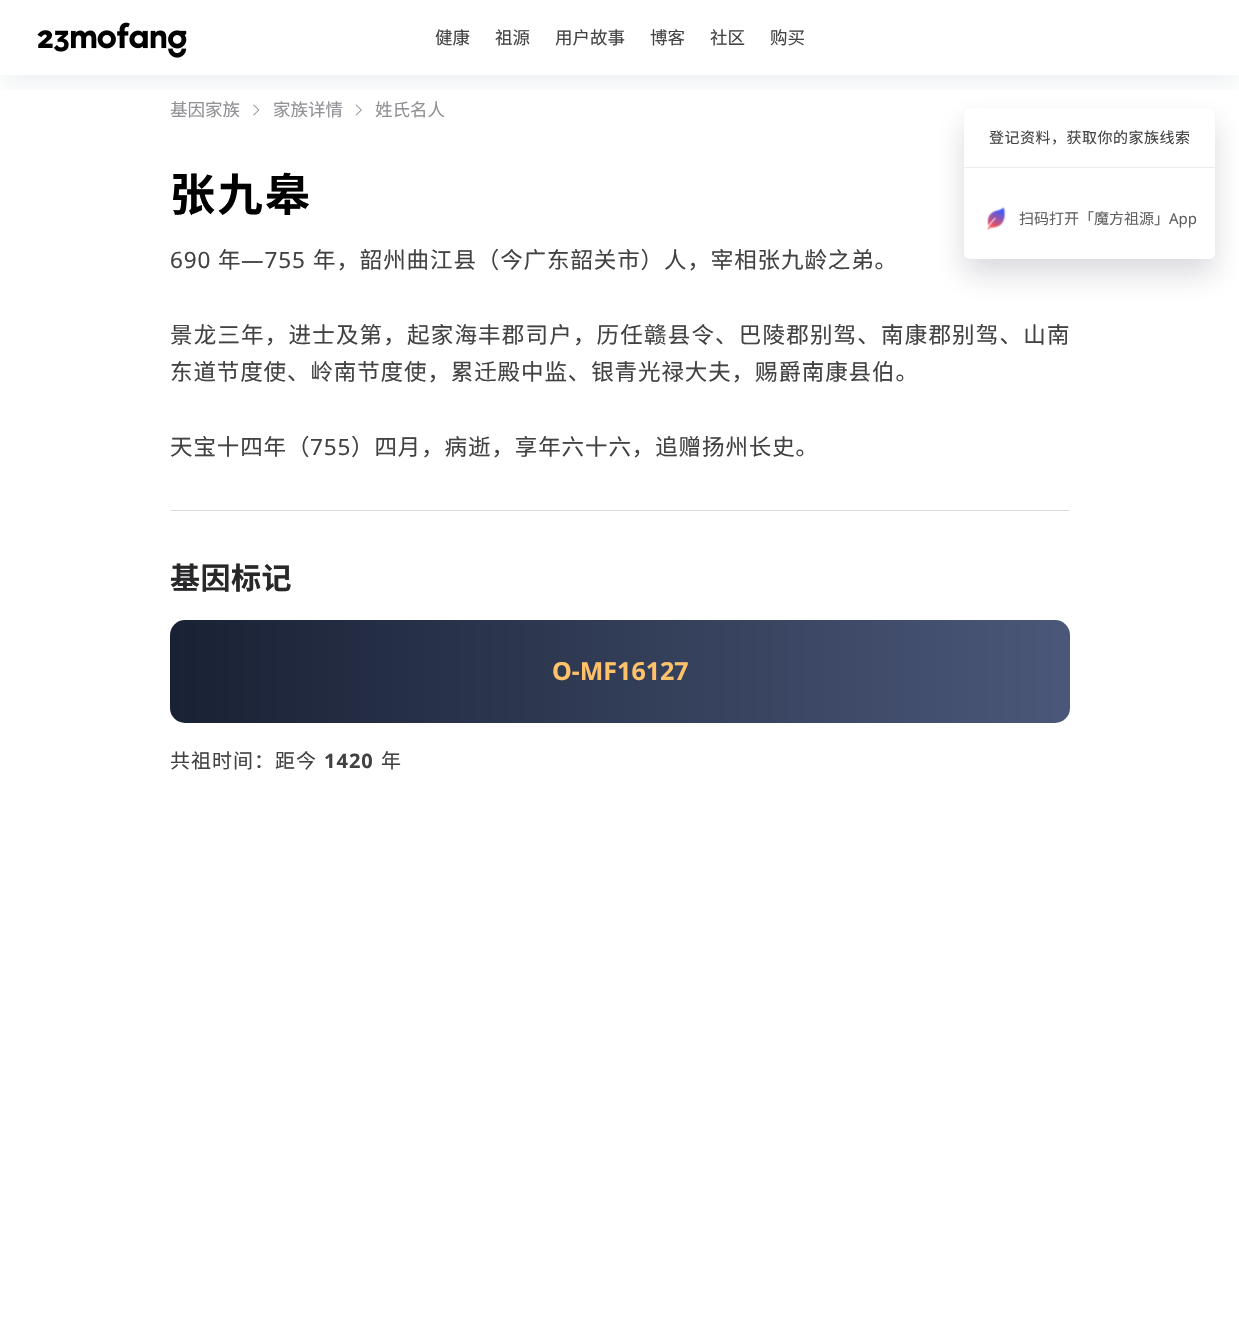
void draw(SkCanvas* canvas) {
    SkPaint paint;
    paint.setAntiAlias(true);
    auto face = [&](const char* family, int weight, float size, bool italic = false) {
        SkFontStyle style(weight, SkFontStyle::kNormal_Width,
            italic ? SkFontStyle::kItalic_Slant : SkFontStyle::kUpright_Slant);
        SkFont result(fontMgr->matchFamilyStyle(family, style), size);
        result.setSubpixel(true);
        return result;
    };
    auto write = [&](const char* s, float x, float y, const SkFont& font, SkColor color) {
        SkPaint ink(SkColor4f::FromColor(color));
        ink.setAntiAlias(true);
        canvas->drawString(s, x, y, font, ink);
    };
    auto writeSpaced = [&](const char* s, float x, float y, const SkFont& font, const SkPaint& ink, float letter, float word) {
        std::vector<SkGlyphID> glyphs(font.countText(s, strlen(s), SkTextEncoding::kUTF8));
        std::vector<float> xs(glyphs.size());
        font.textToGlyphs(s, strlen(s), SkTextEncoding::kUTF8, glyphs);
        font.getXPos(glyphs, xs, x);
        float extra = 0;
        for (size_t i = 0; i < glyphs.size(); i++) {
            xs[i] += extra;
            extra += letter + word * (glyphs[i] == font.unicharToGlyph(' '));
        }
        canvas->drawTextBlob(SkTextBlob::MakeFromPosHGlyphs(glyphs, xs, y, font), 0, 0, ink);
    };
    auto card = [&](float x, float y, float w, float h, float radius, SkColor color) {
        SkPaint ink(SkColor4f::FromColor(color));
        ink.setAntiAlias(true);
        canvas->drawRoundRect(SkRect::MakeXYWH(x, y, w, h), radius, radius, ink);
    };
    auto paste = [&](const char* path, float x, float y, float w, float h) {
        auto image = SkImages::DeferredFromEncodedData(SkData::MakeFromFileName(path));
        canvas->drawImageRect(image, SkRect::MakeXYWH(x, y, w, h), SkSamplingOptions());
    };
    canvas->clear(SK_ColorWHITE);
    paste("pic2.png", 253, 104, 7, 12);
    paste("pic3.png", 355, 104, 7, 12);
    paint.setColor(SkColorSetARGB(38, 6, 8, 40));
    paint.setMaskFilter(SkMaskFilter::MakeBlur(kNormal_SkBlurStyle, 15));
    canvas->drawRoundRect(SkRect::MakeXYWH(964, 123, 251, 151), 5, 5, paint);
    paint.setMaskFilter(nullptr);
    paint.setColor(SkColorSetARGB(20, 6, 8, 40));
    paint.setMaskFilter(SkMaskFilter::MakeBlur(kNormal_SkBlurStyle, 0.5f));
    canvas->drawRoundRect(SkRect::MakeXYWH(964, 108, 251, 151), 5, 5, paint);
    paint.setMaskFilter(nullptr);
    card(964, 108, 251, 151, 5, SK_ColorWHITE);
    canvas->save();
    canvas->clipRect(SkRect::MakeXYWH(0, 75, 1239, 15));
    paint.setMaskFilter(SkMaskFilter::MakeBlur(kNormal_SkBlurStyle, 15));
    canvas->drawRect(SkRect::MakeXYWH(0, 5, 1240, 75), paint);
    paint.setMaskFilter(nullptr);
    canvas->restore();
    paste("pic1.png", 37, 22, 150, 36);
    auto kFont1 = face("Noto Sans CJK SC", 400, 17.5f);
    write("健康", 435, 44, kFont1, SkColorSetRGB(66, 66, 68));
    write("祖源", 495, 44, kFont1, SkColorSetRGB(66, 66, 68));
    write("用户故事", 555, 44, kFont1, SkColorSetRGB(66, 66, 68));
    write("博客", 650, 44, kFont1, SkColorSetRGB(66, 66, 68));
    write("社区", 710, 44, kFont1, SkColorSetRGB(66, 66, 68));
    write("购买", 770, 44, kFont1, SkColorSetRGB(66, 66, 68));
    write("基因家族", 170, 116, kFont1, SkColorSetRGB(144, 144, 149));
    write("家族详情", 273, 116, kFont1, SkColorSetRGB(144, 144, 149));
    write("姓氏名人", 375, 116, kFont1, SkColorSetRGB(144, 144, 149));
    auto kFont2 = face("Noto Sans CJK SC", 700, 45);
    paint.setColor(SK_ColorBLACK);
    writeSpaced("张九皋", 170, 211, kFont2, paint, 2.5f, 0);
    auto kFont3 = face("Noto Sans", 400, 22.5f);
    paint.setColor(SkColorSetRGB(66, 66, 68));
    writeSpaced("690", 170, 268, kFont3, paint, 0.9f, 0);
    auto kFont4 = face("Noto Sans CJK SC", 400, 22.5f);
    writeSpaced("年", 218, 268, kFont4, paint, 0.9f, 0);
    writeSpaced("—755", 241, 268, kFont3, paint, 0.9f, 0);
    writeSpaced("年，韶州曲江县（今广东韶关市）人，宰相张九龄之弟。", 313, 268, kFont4, paint, 0.9f, 0);
    writeSpaced("景龙三年，进士及第，起家海丰郡司户，历任赣县令、巴陵郡别驾、南康郡别驾、山南", 170, 343, kFont4, paint, 1.2f, 0);
    writeSpaced("东道节度使、岭南节度使，累迁殿中监、银青光禄大夫，赐爵南康县伯。", 170, 380, kFont4, paint, 0.9f, 0);
    writeSpaced("天宝十四年（", 170, 455, kFont4, paint, 0.9f, 0);
    writeSpaced("755", 310, 455, kFont3, paint, 0.9f, 0);
    writeSpaced("）四月，病逝，享年六十六，追赠扬州长史。", 351, 455, kFont4, paint, 0.9f, 0);
    paint.setColor(SkColorSetRGB(218, 218, 223));
    canvas->drawPath(SkPathBuilder().moveTo(170, 510).lineTo(1070, 510).lineTo(1069, 511).lineTo(171, 511).close().detach(), paint);
    auto kFont5 = face("Noto Sans CJK SC", 700, 30);
    paint.setColor(SkColorSetRGB(40, 40, 42));
    writeSpaced("基因标记", 170, 589, kFont5, paint, 0.5f, 0);
    {
        const SkColor colors[] = {SkColorSetRGB(25, 33, 52), SkColorSetRGB(74, 87, 120)};
        const float stops[] = {0, 0.99f};
        const SkPoint ends[] = {{170, 671}, {1070, 671}};
        paint.setShader(SkGradientShader::MakeLinear(ends, colors, stops, 2, SkTileMode::kClamp));
        paint.setAlpha(255);
    }
    canvas->drawRoundRect(SkRect::MakeXYWH(170, 620, 900, 103), 15, 15, paint);
    auto kFont6 = face("Noto Sans", 700, 25);
    write("O-MF16127", 552, 680, kFont6, SkColorSetRGB(255, 194, 107));
    auto kFont7 = face("Noto Sans CJK SC", 400, 20);
    paint.setShader(nullptr);
    paint.setColor(SkColorSetRGB(66, 66, 68));
    writeSpaced("共祖时间：距今", 170, 768, kFont7, paint, 1, 0);
    auto kFont8 = face("Noto Sans", 700, 20);
    writeSpaced("1420", 324, 768, kFont8, paint, 1, 0);
    writeSpaced("年", 381, 768, kFont7, paint, 1, 0);
    auto kFont9 = face("Noto Sans CJK SC", 400, 15);
    writeSpaced("登记资料，获取你的家族线索", 989, 143, kFont9, paint, 0.5f, 0);
    paint.setColor(SkColorSetRGB(235, 235, 238));
    canvas->drawPath(SkPathBuilder().moveTo(1215, 168).lineTo(964, 168).lineTo(965, 167).lineTo(1214, 167).close().detach(), paint);
    paste("pic4.png", 987, 206, 19, 25);
    write("扫码打开「魔方祖源」", 1019, 224, kFont9, SkColorSetRGB(96, 96, 98));
    auto kFont10 = face("Noto Sans", 400, 15);
    write("App", 1169, 224, kFont10, SkColorSetRGB(96, 96, 98));
}
